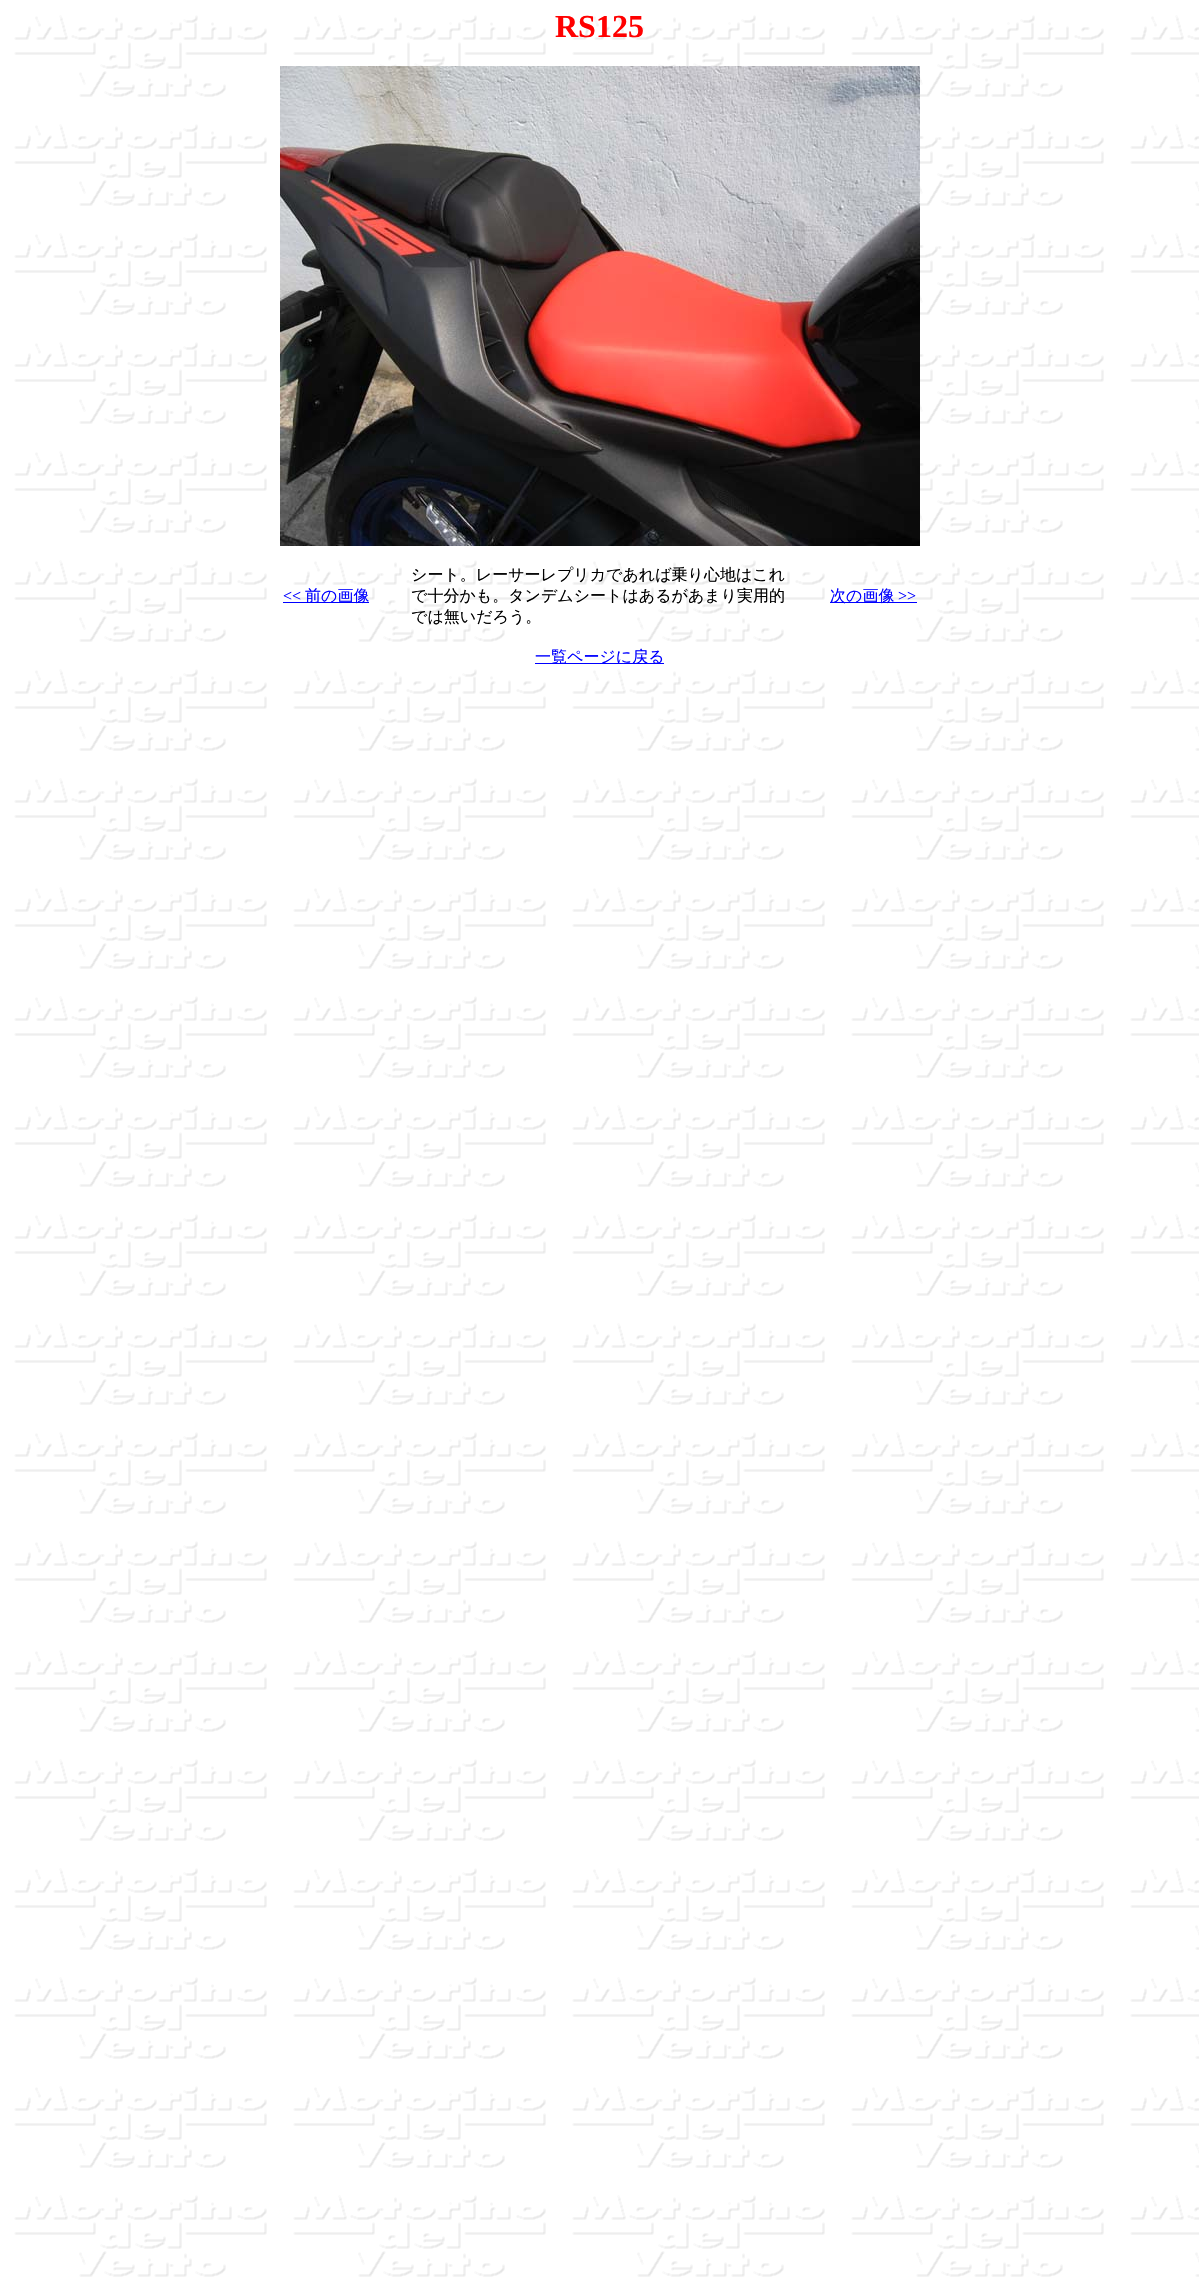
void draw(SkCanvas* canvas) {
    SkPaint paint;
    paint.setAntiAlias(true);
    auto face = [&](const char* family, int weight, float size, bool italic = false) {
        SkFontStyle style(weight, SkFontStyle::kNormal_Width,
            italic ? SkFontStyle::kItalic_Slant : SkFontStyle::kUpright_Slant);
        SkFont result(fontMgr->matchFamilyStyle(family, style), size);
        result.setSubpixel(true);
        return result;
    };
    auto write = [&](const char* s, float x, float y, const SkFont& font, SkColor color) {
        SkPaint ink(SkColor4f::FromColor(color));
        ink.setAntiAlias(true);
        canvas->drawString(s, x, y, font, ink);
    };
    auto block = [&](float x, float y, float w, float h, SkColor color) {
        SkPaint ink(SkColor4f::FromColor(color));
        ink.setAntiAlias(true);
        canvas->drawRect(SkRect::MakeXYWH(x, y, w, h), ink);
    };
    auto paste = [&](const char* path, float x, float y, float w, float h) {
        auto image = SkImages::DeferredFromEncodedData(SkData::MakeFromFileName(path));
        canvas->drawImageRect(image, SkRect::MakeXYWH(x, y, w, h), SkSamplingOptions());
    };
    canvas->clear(SK_ColorWHITE);
    paste("pic1.png", 14, 15, 1185, 2262);
    auto kFont1 = face("Liberation Serif", 700, 32);
    write("RS125", 555, 37, kFont1, SkColorSetRGB(255, 0, 0));
    paste("pic2.png", 280, 66, 640, 480);
    auto kFont2 = face("Liberation Serif", 400, 16);
    write("<<", 283, 601, kFont2, SkColorSetRGB(0, 0, 255));
    block(283, 602, 86, 1, SkColorSetRGB(0, 0, 255));
    auto kFont3 = face("WenQuanYi Zen Hei", 500, 16);
    write("前の画像", 305, 601, kFont3, SkColorSetRGB(0, 0, 255));
    write("シート。レーサーレプリカであれば乗り心地はこれ", 411, 580, kFont3, SK_ColorBLACK);
    write("で十分かも。タンデムシートはあるがあまり実用的", 411, 601, kFont3, SK_ColorBLACK);
    write("では無いだろう。", 411, 622, kFont3, SK_ColorBLACK);
    block(830, 602, 87, 1, SkColorSetRGB(0, 0, 255));
    write("次の画像", 830, 601, kFont3, SkColorSetRGB(0, 0, 255));
    write(">>", 898, 601, kFont2, SkColorSetRGB(0, 0, 255));
    block(535, 663, 129, 1, SkColorSetRGB(0, 0, 255));
    write("一覧ページに戻る", 535, 662, kFont3, SkColorSetRGB(0, 0, 255));
}
